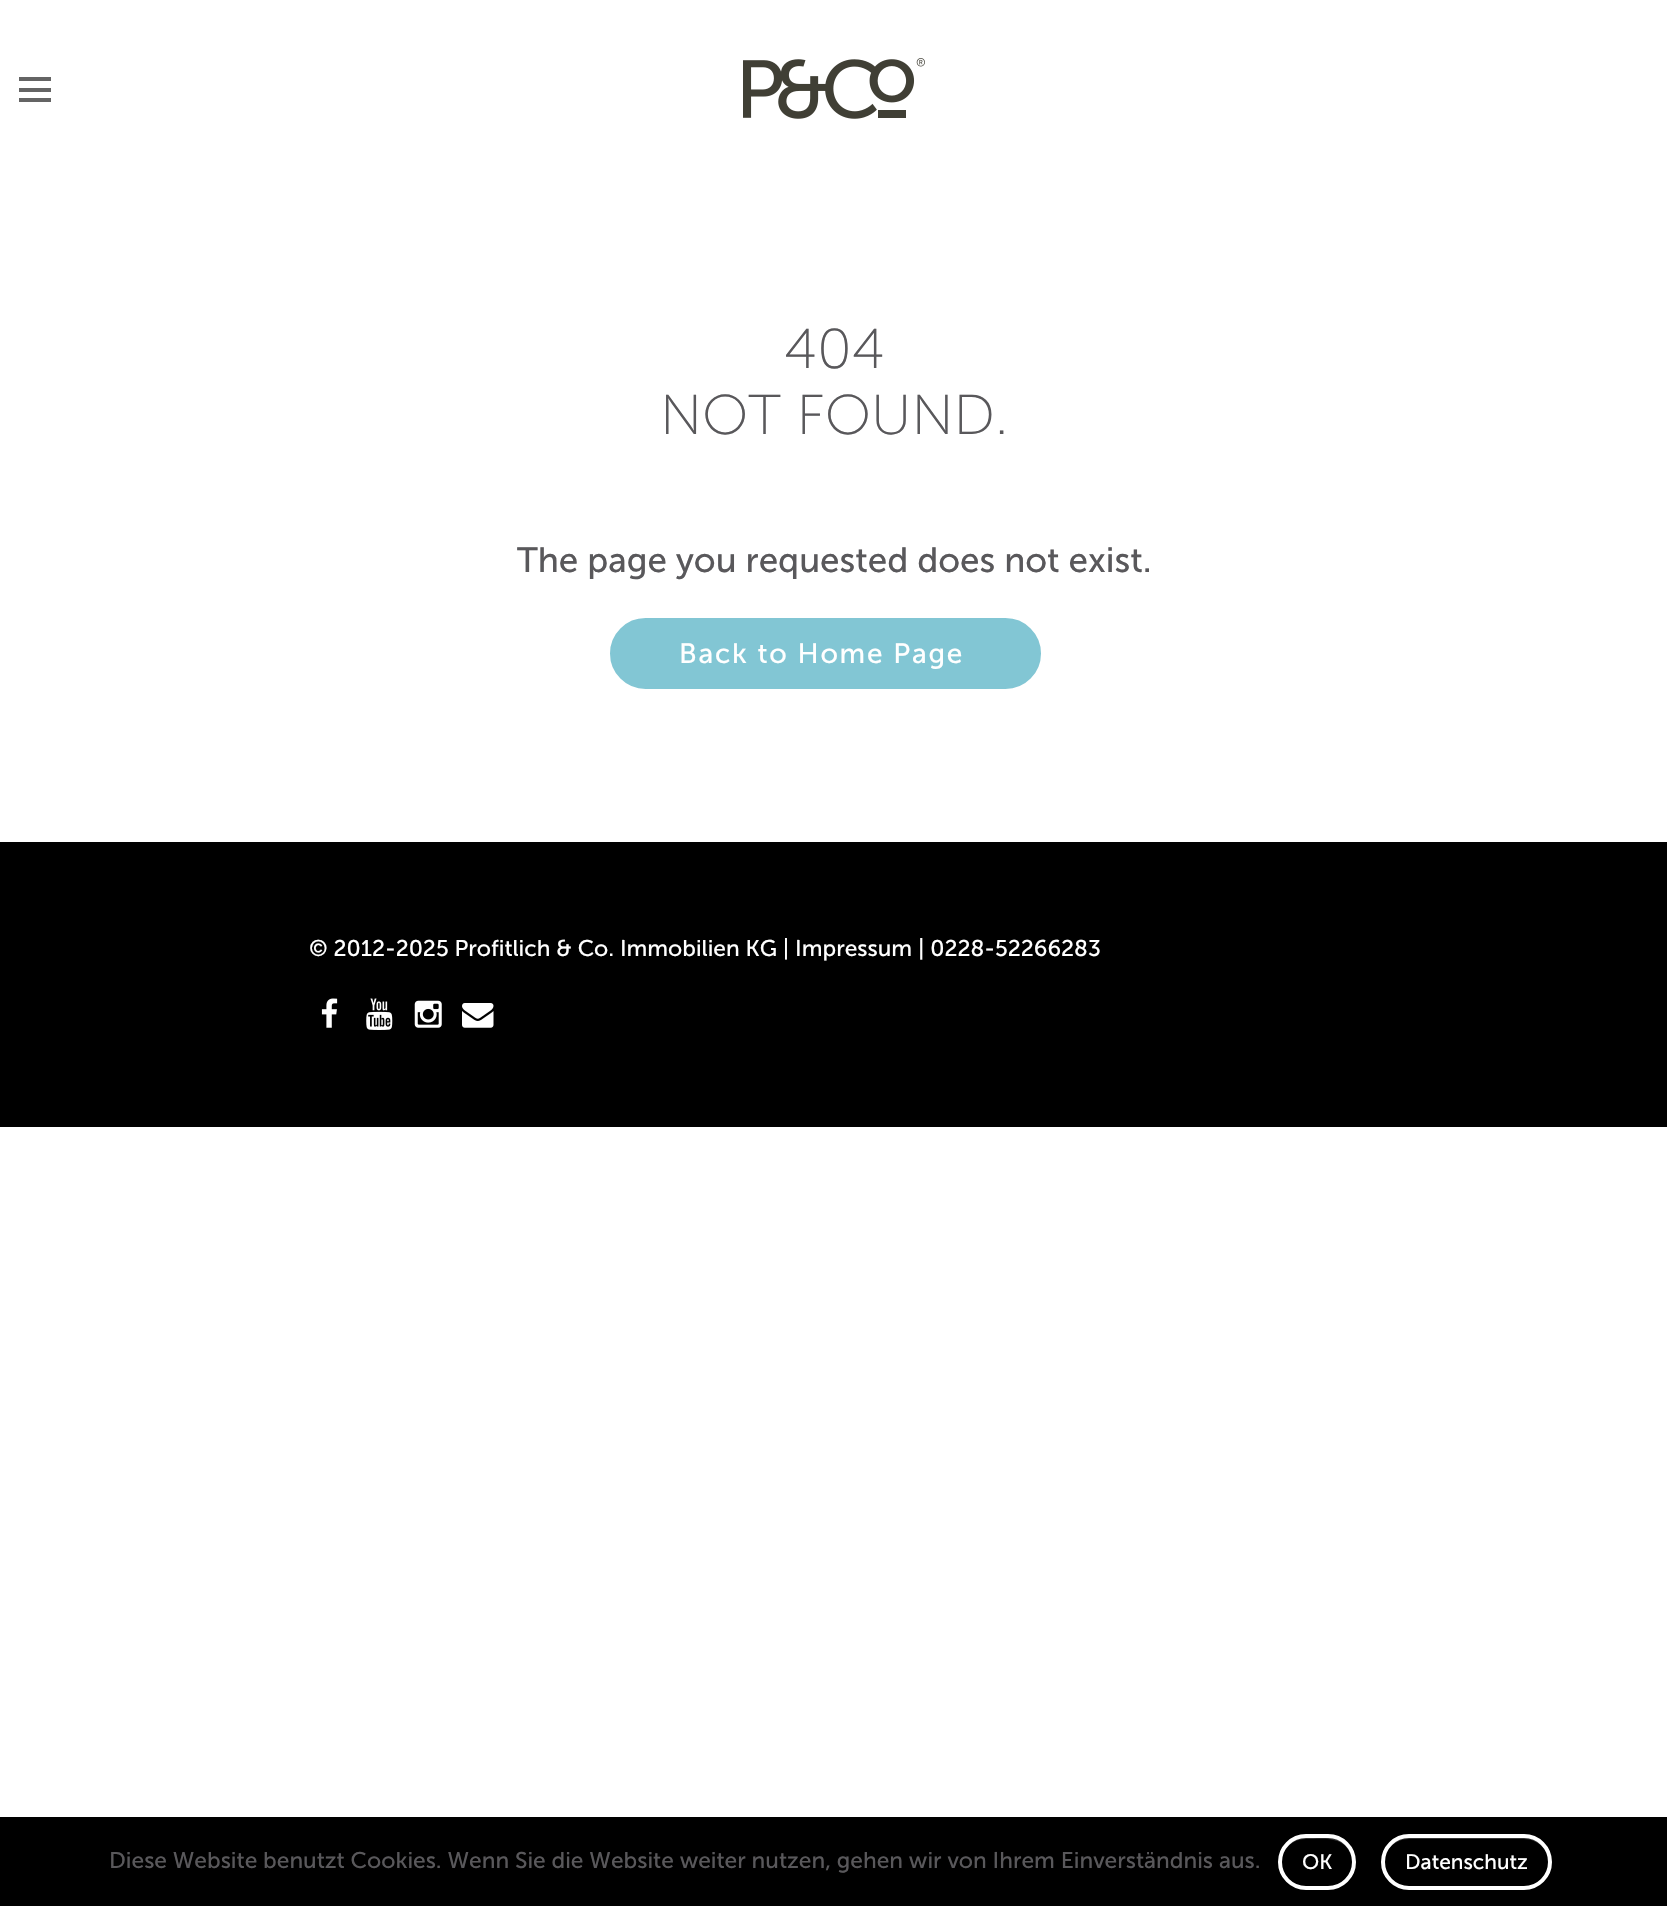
void draw(SkCanvas* canvas) {
    SkPaint paint;
    paint.setAntiAlias(true);
    auto face = [&](const char* family, int weight, float size, bool italic = false) {
        SkFontStyle style(weight, SkFontStyle::kNormal_Width,
            italic ? SkFontStyle::kItalic_Slant : SkFontStyle::kUpright_Slant);
        SkFont result(fontMgr->matchFamilyStyle(family, style), size);
        result.setSubpixel(true);
        return result;
    };
    auto write = [&](const char* s, float x, float y, const SkFont& font, SkColor color) {
        SkPaint ink(SkColor4f::FromColor(color));
        ink.setAntiAlias(true);
        canvas->drawString(s, x, y, font, ink);
    };
    auto writeSpaced = [&](const char* s, float x, float y, const SkFont& font, const SkPaint& ink, float letter, float word) {
        std::vector<SkGlyphID> glyphs(font.countText(s, strlen(s), SkTextEncoding::kUTF8));
        std::vector<float> xs(glyphs.size());
        font.textToGlyphs(s, strlen(s), SkTextEncoding::kUTF8, glyphs);
        font.getXPos(glyphs, xs, x);
        float extra = 0;
        for (size_t i = 0; i < glyphs.size(); i++) {
            xs[i] += extra;
            extra += letter + word * (glyphs[i] == font.unicharToGlyph(' '));
        }
        canvas->drawTextBlob(SkTextBlob::MakeFromPosHGlyphs(glyphs, xs, y, font), 0, 0, ink);
    };
    auto block = [&](float x, float y, float w, float h, SkColor color) {
        SkPaint ink(SkColor4f::FromColor(color));
        ink.setAntiAlias(true);
        canvas->drawRect(SkRect::MakeXYWH(x, y, w, h), ink);
    };
    auto paste = [&](const char* path, float x, float y, float w, float h) {
        auto image = SkImages::DeferredFromEncodedData(SkData::MakeFromFileName(path));
        canvas->drawImageRect(image, SkRect::MakeXYWH(x, y, w, h), SkSamplingOptions());
    };
    canvas->clear(SK_ColorWHITE);
    block(19, 77, 32, 4, SkColorSetRGB(100, 100, 100));
    block(19, 88, 32, 4, SkColorSetRGB(100, 100, 100));
    block(19, 98, 32, 4, SkColorSetRGB(100, 100, 100));
    paste("pic1.png", 743, 58, 182, 61);
    auto kFont1 = face("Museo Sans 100", 300, 56);
    write("404", 784, 368, kFont1, SkColorSetRGB(89, 88, 91));
    write("NOT FOUND.", 660, 434, kFont1, SkColorSetRGB(89, 88, 91));
    auto kFont2 = face("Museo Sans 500", 400, 35);
    write("The page you requested does not exist.", 517, 572, kFont2, SkColorSetRGB(89, 88, 91));
    paint.setColor(SkColorSetRGB(130, 198, 212));
    canvas->drawRoundRect(SkRect::MakeXYWH(608, 616, 435, 75), 37.5f, 37.5f, paint);
    paint.setStyle(SkPaint::kStroke_Style);
    paint.setStrokeWidth(4);
    paint.setColor(SK_ColorWHITE);
    canvas->drawRoundRect(SkRect::MakeXYWH(608, 616, 435, 75), 37.5f, 37.5f, paint);
    auto kFont3 = face("Museo Sans 500", 400, 28);
    paint.setStyle(SkPaint::kFill_Style);
    writeSpaced("Back to Home Page", 679, 663, kFont3, paint, 1.75f, 0);
    block(0, 842, 1667, 285, SK_ColorBLACK);
    auto kFont4 = face("Museo Sans 500", 400, 22.75f);
    write("© 2012-2025 Profitlich & Co. Immobilien KG | Impressum | 0228-52266283", 309, 956, kFont4, SK_ColorWHITE);
    paste("pic2.png", 321, 998, 17, 30);
    paste("pic3.png", 366, 998, 27, 32);
    paste("pic4.png", 414, 1000, 28, 28);
    paste("pic5.png", 462, 1003, 32, 25);
    block(0, 1817, 1667, 89, SK_ColorBLACK);
    write("Diese Website benutzt Cookies. Wenn Sie die Website weiter nutzen, gehen wir von Ihrem Einverständnis aus.", 109, 1868, kFont4, SkColorSetRGB(89, 88, 91));
    paint.setColor(SkColorSetRGB(51, 51, 51));
    canvas->drawPath(SkPathBuilder().moveTo(1306, 1839).cubicTo(1322, 1839, 1344, 1835, 1351, 1855).cubicTo(1353, 1861, 1353, 1867, 1351, 1873).cubicTo(1357, 1859, 1349, 1842, 1333, 1838).lineTo(1317, 1838).lineTo(1301, 1838).cubicTo(1287, 1841, 1278, 1855, 1282, 1869).cubicTo(1279, 1855, 1288, 1839, 1306, 1839).close().detach(), paint);
    paint.setStyle(SkPaint::kStroke_Style);
    paint.setColor(SK_ColorWHITE);
    canvas->drawRoundRect(SkRect::MakeXYWH(1280, 1836, 74, 52), 26, 26, paint);
    auto kFont5 = face("Museo Sans 500", 400, 21);
    write("OK", 1302, 1869, kFont5, SK_ColorWHITE);
    paint.setStyle(SkPaint::kFill_Style);
    paint.setColor(SkColorSetRGB(51, 51, 51));
    canvas->drawPath(SkPathBuilder().moveTo(1409, 1839).lineTo(1524, 1839).cubicTo(1538, 1839, 1549, 1850, 1549, 1863).lineTo(1549, 1862).cubicTo(1549, 1849, 1538, 1838, 1524, 1838).lineTo(1408, 1838).cubicTo(1395, 1838, 1384, 1849, 1384, 1862).lineTo(1384, 1863).cubicTo(1384, 1850, 1395, 1839, 1409, 1839).close().detach(), paint);
    paint.setStyle(SkPaint::kStroke_Style);
    paint.setColor(SK_ColorWHITE);
    canvas->drawRoundRect(SkRect::MakeXYWH(1383, 1836, 167, 52), 26, 26, paint);
    write("Datenschutz", 1405, 1869, kFont5, SK_ColorWHITE);
}
